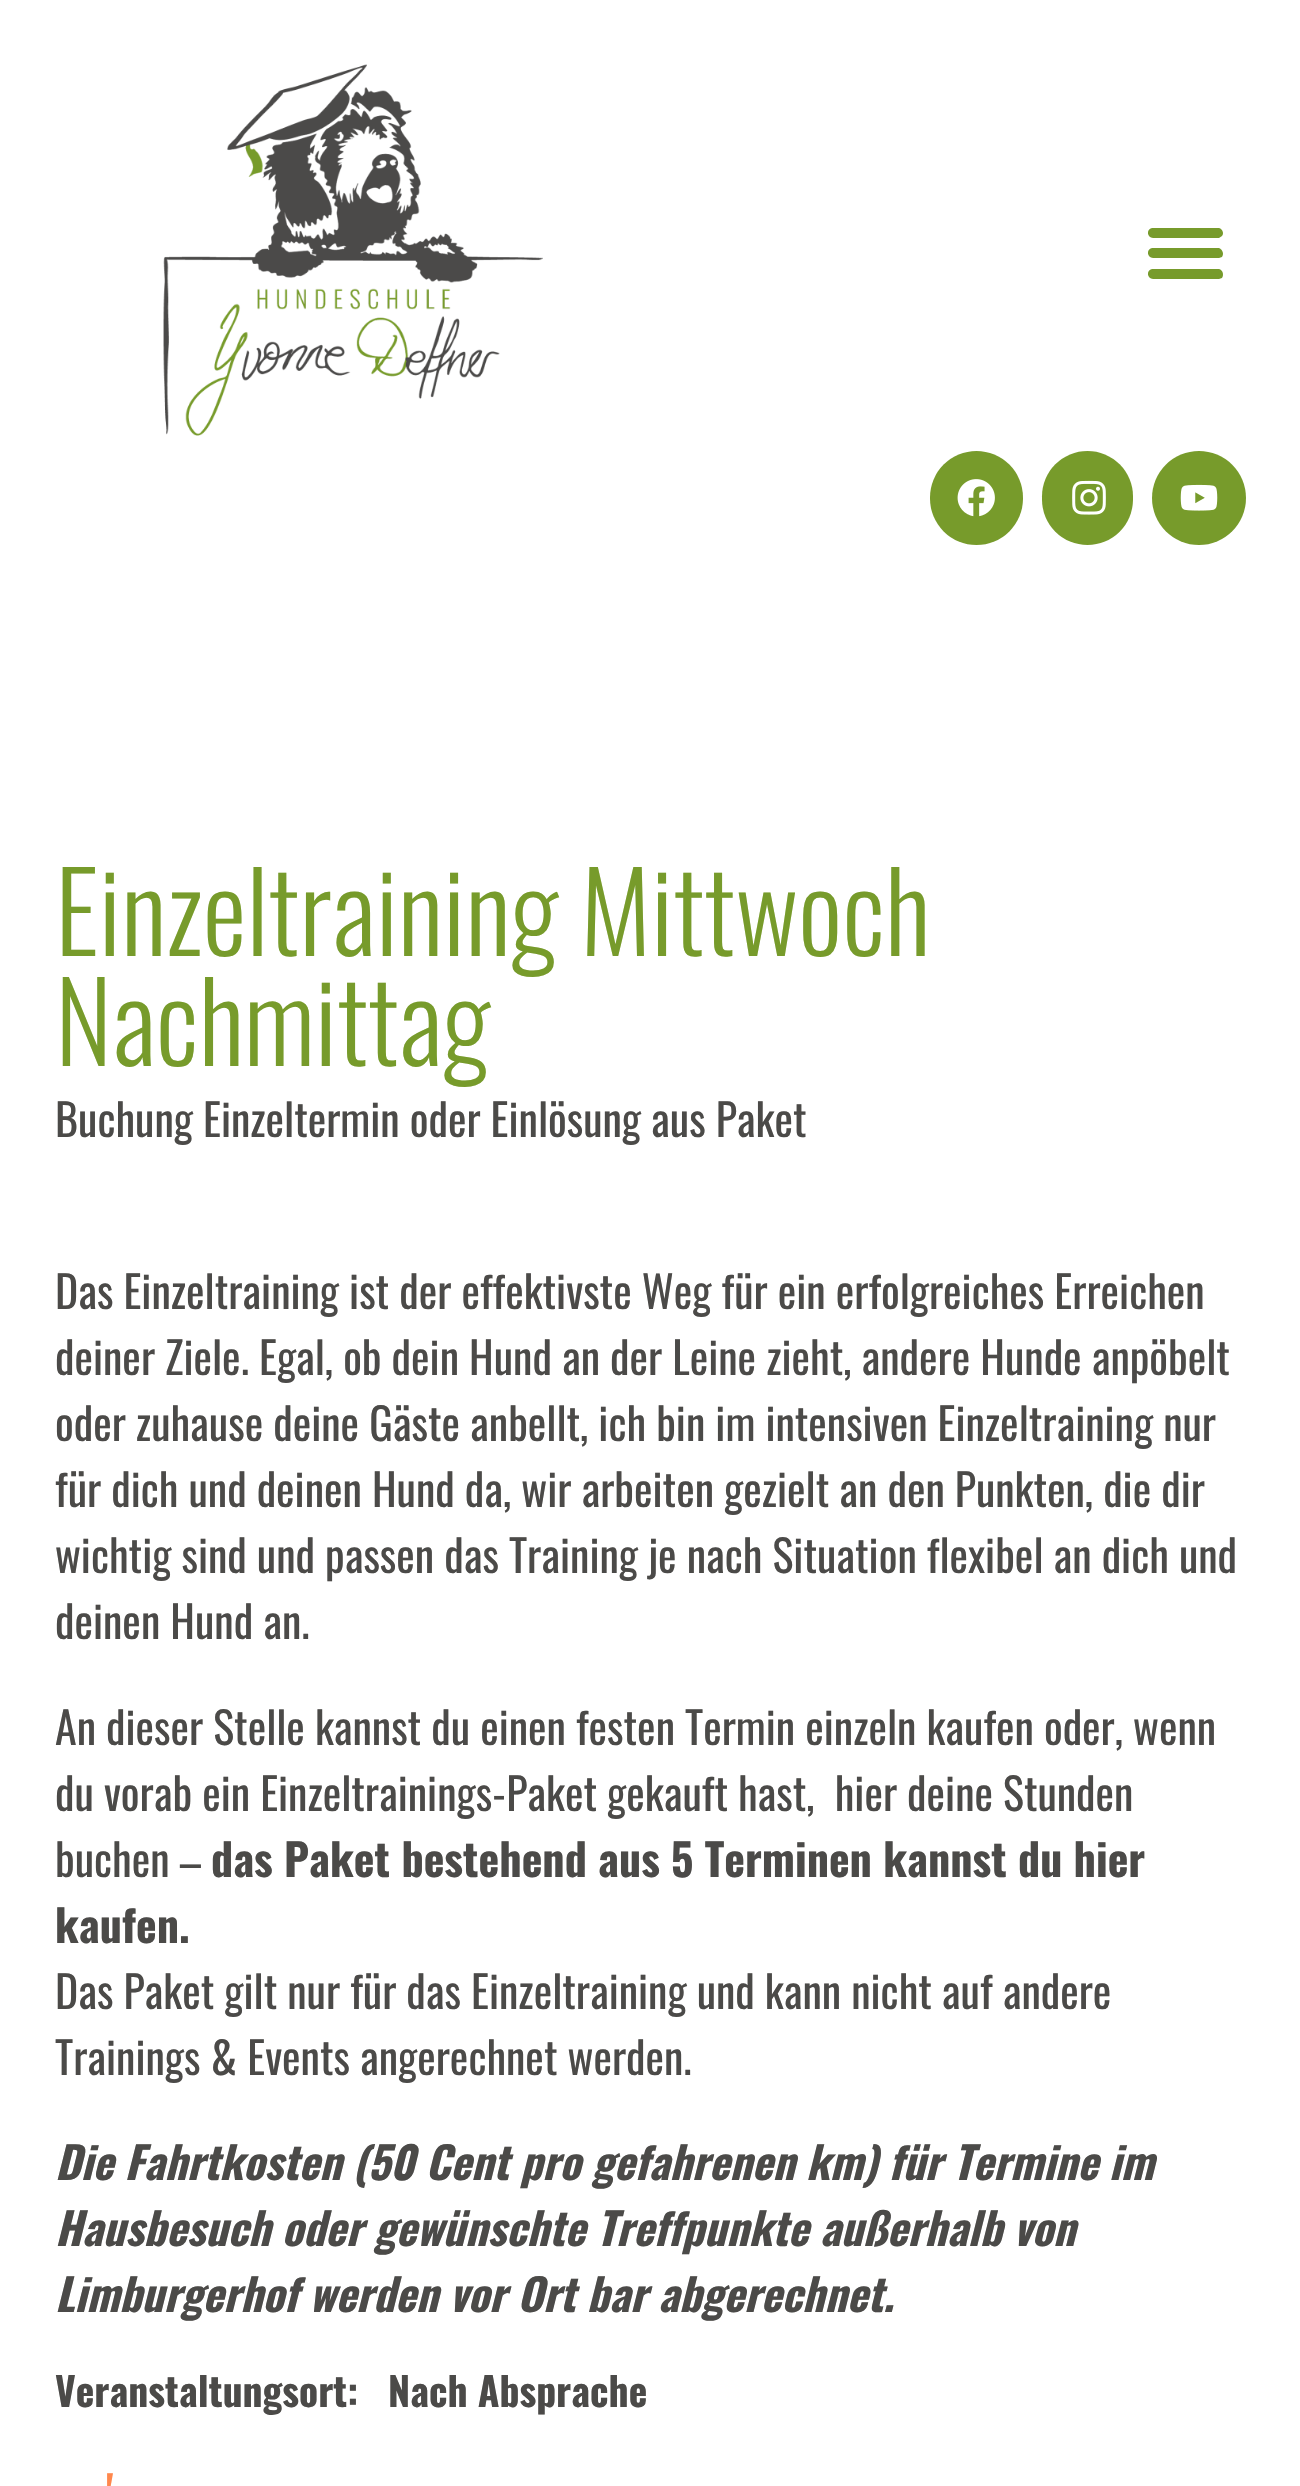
void draw(SkCanvas* canvas) {
    SkPaint paint;
    paint.setAntiAlias(true);
    auto face = [&](const char* family, int weight, float size, bool italic = false) {
        SkFontStyle style(weight, SkFontStyle::kNormal_Width,
            italic ? SkFontStyle::kItalic_Slant : SkFontStyle::kUpright_Slant);
        SkFont result(fontMgr->matchFamilyStyle(family, style), size);
        result.setSubpixel(true);
        return result;
    };
    auto write = [&](const char* s, float x, float y, const SkFont& font, SkColor color) {
        SkPaint ink(SkColor4f::FromColor(color));
        ink.setAntiAlias(true);
        canvas->drawString(s, x, y, font, ink);
    };
    auto card = [&](float x, float y, float w, float h, float radius, SkColor color) {
        SkPaint ink(SkColor4f::FromColor(color));
        ink.setAntiAlias(true);
        canvas->drawRoundRect(SkRect::MakeXYWH(x, y, w, h), radius, radius, ink);
    };
    auto paste = [&](const char* path, float x, float y, float w, float h) {
        auto image = SkImages::DeferredFromEncodedData(SkData::MakeFromFileName(path));
        canvas->drawImageRect(image, SkRect::MakeXYWH(x, y, w, h), SkSamplingOptions());
    };
    canvas->clear(SK_ColorWHITE);
    paste("pic1.png", 163, 64, 380, 372);
    paint.setColor(SkColorSetRGB(119, 155, 43));
    canvas->drawPath(SkPathBuilder().moveTo(1153, 238).lineTo(1219, 238).lineTo(1222, 236).cubicTo(1224, 234, 1223, 229, 1219, 228).lineTo(1152, 228).cubicTo(1146, 229, 1147, 238, 1153, 238).close().moveTo(1153, 258).lineTo(1219, 258).lineTo(1222, 257).cubicTo(1224, 254, 1223, 250, 1219, 248).lineTo(1152, 248).cubicTo(1146, 249, 1147, 258, 1153, 258).close().moveTo(1153, 279).lineTo(1219, 279).lineTo(1222, 278).cubicTo(1224, 275, 1223, 270, 1219, 269).lineTo(1152, 269).cubicTo(1146, 270, 1147, 279, 1153, 279).close().detach(), paint);
    card(930, 451, 93, 94, 46.5f, SkColorSetRGB(119, 155, 43));
    paste("pic2.png", 957, 479, 38, 38);
    card(1042, 451, 91, 94, 45.5f, SkColorSetRGB(119, 155, 43));
    paste("pic3.png", 1072, 480, 34, 35);
    canvas->drawCircle(1199, 498, 47, paint);
    paste("pic4.png", 1180, 484, 38, 27);
    auto kFont1 = face("Oswald", 300, 110);
    write("Einzeltraining Mittwoch", 55, 956, kFont1, SkColorSetRGB(119, 155, 43));
    write("Nachmittag", 55, 1066, kFont1, SkColorSetRGB(119, 155, 43));
    auto kFont2 = face("Oswald", 400, 44);
    write("Buchung Einzeltermin oder Einlösung aus Paket", 55, 1137, kFont2, SkColorSetRGB(75, 74, 72));
    write("Das Einzeltraining ist der effektivste Weg für ein erfolgreiches Erreichen", 55, 1309, kFont2, SkColorSetRGB(75, 74, 72));
    write("deiner Ziele. Egal, ob dein Hund an der Leine zieht, andere Hunde anpöbelt", 55, 1375, kFont2, SkColorSetRGB(75, 74, 72));
    write("oder zuhause deine Gäste anbellt, ich bin im intensiven Einzeltraining nur", 55, 1441, kFont2, SkColorSetRGB(75, 74, 72));
    write("für dich und deinen Hund da, wir arbeiten gezielt an den Punkten, die dir", 55, 1507, kFont2, SkColorSetRGB(75, 74, 72));
    write("wichtig sind und passen das Training je nach Situation flexibel an dich und", 55, 1573, kFont2, SkColorSetRGB(75, 74, 72));
    write("deinen Hund an.", 55, 1639, kFont2, SkColorSetRGB(75, 74, 72));
    write("An dieser Stelle kannst du einen festen Termin einzeln kaufen oder, wenn", 55, 1745, kFont2, SkColorSetRGB(75, 74, 72));
    write("du vorab ein Einzeltrainings-Paket gekauft hast,  hier deine Stunden", 55, 1811, kFont2, SkColorSetRGB(75, 74, 72));
    write("buchen –", 55, 1877, kFont2, SkColorSetRGB(75, 74, 72));
    auto kFont3 = face("Oswald", 700, 44);
    write("das Paket bestehend aus 5 Terminen kannst du hier", 211, 1877, kFont3, SkColorSetRGB(75, 74, 72));
    write("kaufen.", 55, 1943, kFont3, SkColorSetRGB(75, 74, 72));
    write("Das Paket gilt nur für das Einzeltraining und kann nicht auf andere", 55, 2009, kFont2, SkColorSetRGB(75, 74, 72));
    write("Trainings & Events angerechnet werden.", 55, 2075, kFont2, SkColorSetRGB(75, 74, 72));
    auto kFont4 = face("Oswald", 700, 44, true);
    write("Die Fahrtkosten (50 Cent pro gefahrenen km) für Termine im", 55, 2180, kFont4, SkColorSetRGB(75, 74, 72));
    write("Hausbesuch oder gewünschte Treffpunkte außerhalb von", 55, 2246, kFont4, SkColorSetRGB(75, 74, 72));
    write("Limburgerhof werden vor Ort bar abgerechnet.", 55, 2312, kFont4, SkColorSetRGB(75, 74, 72));
    auto kFont5 = face("Oswald", 700, 39.5f);
    write("Veranstaltungsort:", 55, 2407, kFont5, SkColorSetRGB(75, 74, 72));
    write("Nach Absprache", 388, 2407, kFont5, SkColorSetRGB(75, 74, 72));
    write("'", 106, 2509, kFont3, SkColorSetRGB(255, 136, 77));
}
